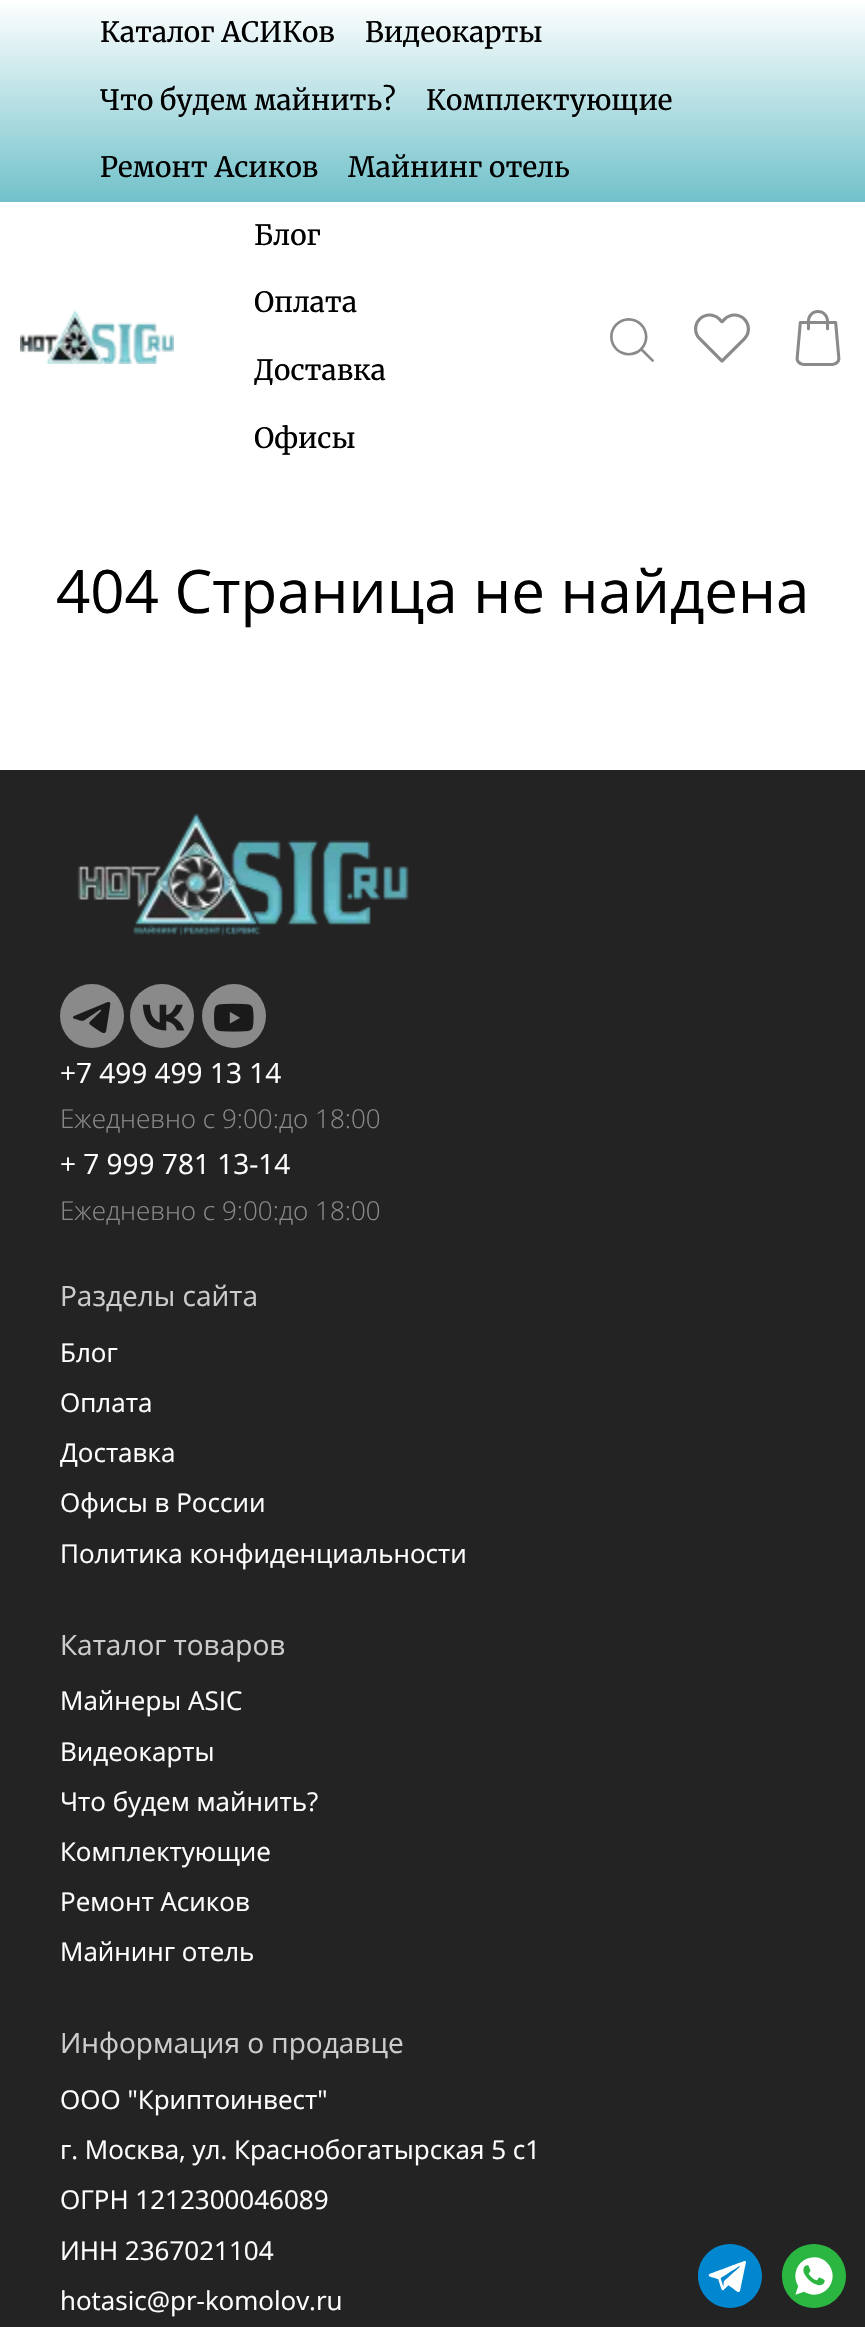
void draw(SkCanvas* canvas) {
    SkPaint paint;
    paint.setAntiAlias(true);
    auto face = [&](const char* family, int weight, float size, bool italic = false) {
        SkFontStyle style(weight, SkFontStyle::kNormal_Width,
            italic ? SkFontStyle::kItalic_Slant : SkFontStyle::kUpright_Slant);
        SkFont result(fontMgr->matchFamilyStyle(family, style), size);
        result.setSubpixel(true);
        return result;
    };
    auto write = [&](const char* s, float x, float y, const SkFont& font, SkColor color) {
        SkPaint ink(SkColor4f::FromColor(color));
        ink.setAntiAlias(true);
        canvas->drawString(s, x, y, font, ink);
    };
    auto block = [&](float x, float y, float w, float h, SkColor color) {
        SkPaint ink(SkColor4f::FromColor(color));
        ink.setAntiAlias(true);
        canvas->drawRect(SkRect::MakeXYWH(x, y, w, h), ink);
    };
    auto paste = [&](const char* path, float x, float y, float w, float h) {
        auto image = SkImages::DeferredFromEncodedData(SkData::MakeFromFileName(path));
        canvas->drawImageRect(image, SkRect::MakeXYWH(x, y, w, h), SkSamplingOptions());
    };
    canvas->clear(SK_ColorWHITE);
    {
        const SkColor colors[] = {SK_ColorWHITE, SkColorSetRGB(113, 193, 202)};
        const float stops[] = {0, 1};
        const SkPoint ends[] = {{433, 0}, {433, 202}};
        paint.setShader(SkGradientShader::MakeLinear(ends, colors, stops, 2, SkTileMode::kClamp));
        paint.setAlpha(255);
    }
    canvas->drawRect(SkRect::MakeXYWH(0, 4, 865, 198), paint);
    auto kFont1 = face("Merriweather", 400, 28);
    write("Каталог АСИКов", 100, 42, kFont1, SK_ColorBLACK);
    write("Видеокарты", 365, 42, kFont1, SK_ColorBLACK);
    write("Что будем майнить?", 100, 110, kFont1, SK_ColorBLACK);
    write("Комплектующие", 426, 110, kFont1, SK_ColorBLACK);
    write("Ремонт Асиков", 100, 177, kFont1, SK_ColorBLACK);
    write("Майнинг отель", 348, 177, kFont1, SK_ColorBLACK);
    paste("pic1.png", 20, 310, 154, 54);
    write("Блог", 254, 245, kFont1, SK_ColorBLACK);
    write("Оплата", 254, 312, kFont1, SK_ColorBLACK);
    write("Доставка", 254, 380, kFont1, SK_ColorBLACK);
    write("Офисы", 254, 448, kFont1, SK_ColorBLACK);
    paste("pic2.png", 610, 318, 44, 44);
    paste("pic3.png", 694, 313, 56, 50);
    paste("pic4.png", 795, 310, 46, 56);
    block(0, 770, 865, 1557, SkColorSetRGB(35, 35, 35));
    paste("pic5.png", 698, 2244, 64, 64);
    paste("pic6.png", 782, 2244, 64, 64);
    auto kFont2 = face("Open Sans", 400, 60);
    write("404 Страница не найдена", 56, 613, kFont2, SK_ColorBLACK);
    paste("pic7.png", 77, 813, 332, 123);
    paint.setShader(nullptr);
    paint.setColor(SkColorSetRGB(138, 138, 138));
    canvas->drawCircle(92, 1016, 32, paint);
    paste("pic8.png", 72, 1002, 39, 31);
    canvas->drawCircle(162, 1016, 32, paint);
    paste("pic9.png", 142, 1004, 43, 27);
    canvas->drawCircle(234, 1016, 32, paint);
    paste("pic10.png", 214, 1003, 40, 29);
    auto kFont3 = face("Open Sans", 400, 28);
    write("+7 499 499 13 14", 60, 1083, kFont3, SK_ColorWHITE);
    auto kFont4 = face("Open Sans", 300, 26);
    write("Ежедневно с 9:00:до 18:00", 60, 1128, kFont4, SkColorSetRGB(138, 138, 138));
    write("+ 7 999 781 13-14", 60, 1174, kFont3, SK_ColorWHITE);
    write("Ежедневно с 9:00:до 18:00", 60, 1220, kFont4, SkColorSetRGB(138, 138, 138));
    write("Разделы сайта", 60, 1306, kFont3, SkColorSetRGB(204, 204, 204));
    auto kFont5 = face("Open Sans", 400, 26);
    write("Блог", 60, 1362, kFont5, SK_ColorWHITE);
    write("Оплата", 60, 1412, kFont5, SK_ColorWHITE);
    write("Доставка", 60, 1462, kFont5, SK_ColorWHITE);
    write("Офисы в России", 60, 1512, kFont5, SK_ColorWHITE);
    write("Политика конфиденциальности", 60, 1563, kFont5, SK_ColorWHITE);
    write("Каталог товаров", 60, 1655, kFont3, SkColorSetRGB(204, 204, 204));
    write("Майнеры ASIC", 60, 1710, kFont5, SK_ColorWHITE);
    write("Видеокарты", 60, 1761, kFont5, SK_ColorWHITE);
    write("Что будем майнить?", 60, 1811, kFont5, SK_ColorWHITE);
    write("Комплектующие", 60, 1861, kFont5, SK_ColorWHITE);
    write("Ремонт Асиков", 60, 1911, kFont5, SK_ColorWHITE);
    write("Майнинг отель", 60, 1961, kFont5, SK_ColorWHITE);
    write("Информация о продавце", 60, 2053, kFont3, SkColorSetRGB(204, 204, 204));
    write("ООО \"Криптоинвест\"", 60, 2109, kFont5, SK_ColorWHITE);
    write("г. Москва, ул. Краснобогатырская 5 с1", 60, 2159, kFont5, SK_ColorWHITE);
    write("ОГРН 1212300046089", 60, 2209, kFont5, SK_ColorWHITE);
    write("ИНН 2367021104", 60, 2260, kFont5, SK_ColorWHITE);
    write("hotasic@pr-komolov.ru", 60, 2310, kFont5, SK_ColorWHITE);
}
